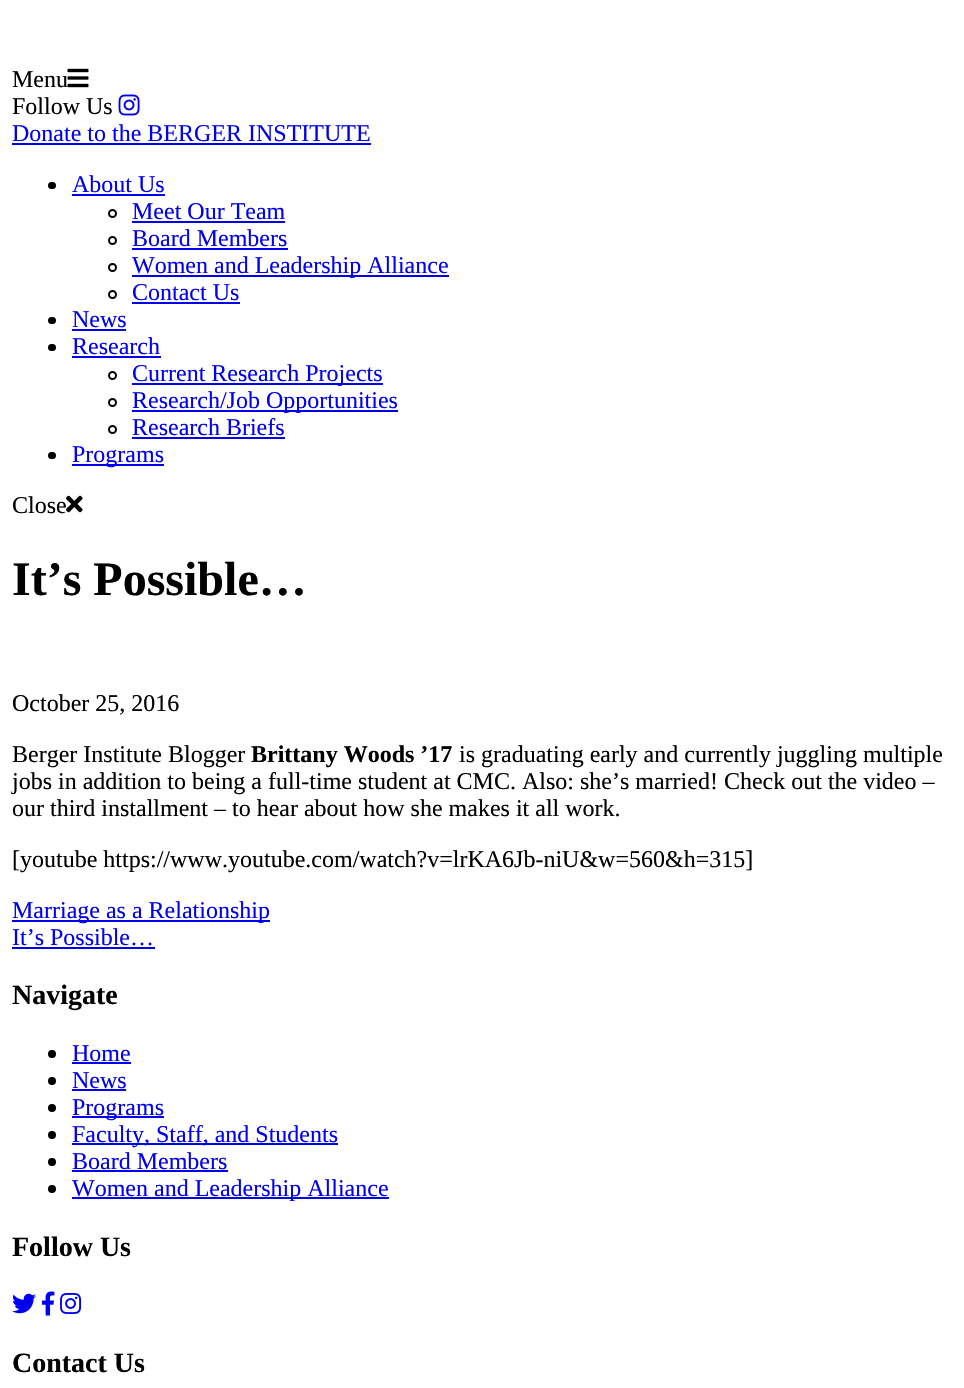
void draw(SkCanvas* canvas) {
    SkPaint paint;
    paint.setAntiAlias(true);
    auto face = [&](const char* family, int weight, float size, bool italic = false) {
        SkFontStyle style(weight, SkFontStyle::kNormal_Width,
            italic ? SkFontStyle::kItalic_Slant : SkFontStyle::kUpright_Slant);
        SkFont result(fontMgr->matchFamilyStyle(family, style), size);
        result.setSubpixel(true);
        return result;
    };
    auto write = [&](const char* s, float x, float y, const SkFont& font, SkColor color) {
        SkPaint ink(SkColor4f::FromColor(color));
        ink.setAntiAlias(true);
        canvas->drawString(s, x, y, font, ink);
    };
    auto block = [&](float x, float y, float w, float h, SkColor color) {
        SkPaint ink(SkColor4f::FromColor(color));
        ink.setAntiAlias(true);
        canvas->drawRect(SkRect::MakeXYWH(x, y, w, h), ink);
    };
    auto card = [&](float x, float y, float w, float h, float radius, SkColor color) {
        SkPaint ink(SkColor4f::FromColor(color));
        ink.setAntiAlias(true);
        canvas->drawRoundRect(SkRect::MakeXYWH(x, y, w, h), radius, radius, ink);
    };
    auto paste = [&](const char* path, float x, float y, float w, float h) {
        auto image = SkImages::DeferredFromEncodedData(SkData::MakeFromFileName(path));
        canvas->drawImageRect(image, SkRect::MakeXYWH(x, y, w, h), SkSamplingOptions());
    };
    canvas->clear(SK_ColorWHITE);
    auto kFont1 = face("Liberation Serif", 400, 24);
    write("Menu", 12, 87, kFont1, SK_ColorBLACK);
    paste("pic1.png", 67, 68, 22, 20);
    write("Follow Us", 12, 114, kFont1, SK_ColorBLACK);
    paste("pic2.png", 118, 94, 22, 22);
    write("Donate to the BERGER INSTITUTE", 12, 141, kFont1, SkColorSetRGB(0, 0, 238));
    block(12, 143, 359, 2, SkColorSetRGB(0, 0, 238));
    card(48, 182, 8, 7, 3.5f, SK_ColorBLACK);
    write("About Us", 72, 192, kFont1, SkColorSetRGB(0, 0, 238));
    block(72, 194, 93, 2, SkColorSetRGB(0, 0, 238));
    paint.setStyle(SkPaint::kStroke_Style);
    paint.setStrokeWidth(2);
    paint.setColor(SK_ColorBLACK);
    canvas->drawCircle(112.5f, 213.5f, 3.5f, paint);
    write("Meet Our Team", 132, 219, kFont1, SkColorSetRGB(0, 0, 238));
    block(132, 221, 153, 2, SkColorSetRGB(0, 0, 238));
    canvas->drawCircle(112.5f, 240.5f, 3.5f, paint);
    write("Board Members", 132, 246, kFont1, SkColorSetRGB(0, 0, 238));
    block(132, 248, 156, 2, SkColorSetRGB(0, 0, 238));
    canvas->drawCircle(112.5f, 267.5f, 3.5f, paint);
    block(132, 275, 317, 2, SkColorSetRGB(0, 0, 238));
    write("Women and Leadership Alliance", 132, 273, kFont1, SkColorSetRGB(0, 0, 238));
    canvas->drawCircle(112.5f, 294.5f, 3.5f, paint);
    write("Contact Us", 132, 300, kFont1, SkColorSetRGB(0, 0, 238));
    block(132, 302, 108, 2, SkColorSetRGB(0, 0, 238));
    card(48, 317, 8, 7, 3.5f, SK_ColorBLACK);
    write("News", 72, 327, kFont1, SkColorSetRGB(0, 0, 238));
    block(72, 329, 54, 2, SkColorSetRGB(0, 0, 238));
    card(48, 344, 8, 7, 3.5f, SK_ColorBLACK);
    write("Research", 72, 354, kFont1, SkColorSetRGB(0, 0, 238));
    block(72, 356, 89, 2, SkColorSetRGB(0, 0, 238));
    canvas->drawCircle(112.5f, 375.5f, 3.5f, paint);
    block(132, 383, 251, 2, SkColorSetRGB(0, 0, 238));
    write("Current Research Projects", 132, 381, kFont1, SkColorSetRGB(0, 0, 238));
    canvas->drawCircle(112.5f, 402.5f, 3.5f, paint);
    block(132, 410, 266, 2, SkColorSetRGB(0, 0, 238));
    write("Research/Job Opportunities", 132, 408, kFont1, SkColorSetRGB(0, 0, 238));
    canvas->drawCircle(112.5f, 429.5f, 3.5f, paint);
    write("Research Briefs", 132, 435, kFont1, SkColorSetRGB(0, 0, 238));
    block(132, 437, 153, 2, SkColorSetRGB(0, 0, 238));
    card(48, 452, 8, 7, 3.5f, SK_ColorBLACK);
    block(72, 464, 92, 2, SkColorSetRGB(0, 0, 238));
    write("Programs", 72, 462, kFont1, SkColorSetRGB(0, 0, 238));
    write("Close", 12, 513, kFont1, SK_ColorBLACK);
    paste("pic3.png", 66, 495, 17, 18);
    auto kFont2 = face("Liberation Serif", 700, 48);
    write("It’s Possible…", 12, 595, kFont2, SK_ColorBLACK);
    write("October 25, 2016", 12, 711, kFont1, SK_ColorBLACK);
    write("Berger Institute Blogger", 12, 762, kFont1, SK_ColorBLACK);
    auto kFont3 = face("Liberation Serif", 700, 24);
    write("Brittany Woods ’17", 251, 762, kFont3, SK_ColorBLACK);
    write("is graduating early and currently juggling multiple", 459, 762, kFont1, SK_ColorBLACK);
    write("jobs in addition to being a full-time student at CMC. Also: she’s married! Check out the video –", 12, 789, kFont1, SK_ColorBLACK);
    write("our third installment – to hear about how she makes it all work.", 12, 816, kFont1, SK_ColorBLACK);
    write("[youtube https://www.youtube.com/watch?v=lrKA6Jb-niU&w=560&h=315]", 12, 867, kFont1, SK_ColorBLACK);
    block(12, 920, 258, 2, SkColorSetRGB(0, 0, 238));
    write("Marriage as a Relationship", 12, 918, kFont1, SkColorSetRGB(0, 0, 238));
    write("It’s Possible…", 12, 945, kFont1, SkColorSetRGB(0, 0, 238));
    block(12, 947, 143, 2, SkColorSetRGB(0, 0, 238));
    auto kFont4 = face("Liberation Serif", 700, 28);
    write("Navigate", 12, 1004, kFont4, SK_ColorBLACK);
    paint.setStyle(SkPaint::kFill_Style);
    canvas->drawCircle(52, 1054, 4, paint);
    write("Home", 72, 1061, kFont1, SkColorSetRGB(0, 0, 238));
    block(72, 1062, 59, 2, SkColorSetRGB(0, 0, 238));
    canvas->drawCircle(52, 1081, 4, paint);
    write("News", 72, 1088, kFont1, SkColorSetRGB(0, 0, 238));
    block(72, 1089, 54, 2, SkColorSetRGB(0, 0, 238));
    canvas->drawCircle(52, 1108, 4, paint);
    block(72, 1116, 92, 2, SkColorSetRGB(0, 0, 238));
    write("Programs", 72, 1115, kFont1, SkColorSetRGB(0, 0, 238));
    canvas->drawCircle(52, 1135, 4, paint);
    block(72, 1143, 266, 2, SkColorSetRGB(0, 0, 238));
    write("Faculty, Staff, and Students", 72, 1142, kFont1, SkColorSetRGB(0, 0, 238));
    canvas->drawCircle(52, 1162, 4, paint);
    write("Board Members", 72, 1169, kFont1, SkColorSetRGB(0, 0, 238));
    block(72, 1170, 156, 2, SkColorSetRGB(0, 0, 238));
    canvas->drawCircle(52, 1189, 4, paint);
    block(72, 1197, 317, 2, SkColorSetRGB(0, 0, 238));
    write("Women and Leadership Alliance", 72, 1196, kFont1, SkColorSetRGB(0, 0, 238));
    write("Follow Us", 12, 1256, kFont4, SK_ColorBLACK);
    paste("pic4.png", 12, 1293, 24, 21);
    paste("pic5.png", 42, 1291, 13, 25);
    paste("pic6.png", 60, 1293, 22, 21);
    write("Contact Us", 12, 1372, kFont4, SK_ColorBLACK);
}
